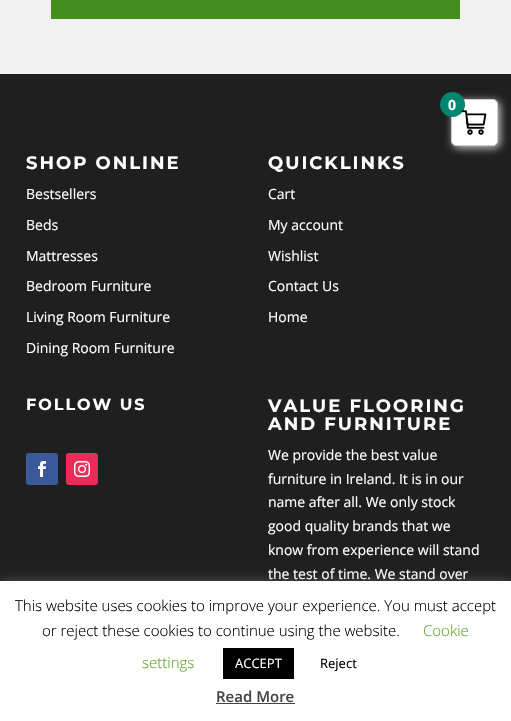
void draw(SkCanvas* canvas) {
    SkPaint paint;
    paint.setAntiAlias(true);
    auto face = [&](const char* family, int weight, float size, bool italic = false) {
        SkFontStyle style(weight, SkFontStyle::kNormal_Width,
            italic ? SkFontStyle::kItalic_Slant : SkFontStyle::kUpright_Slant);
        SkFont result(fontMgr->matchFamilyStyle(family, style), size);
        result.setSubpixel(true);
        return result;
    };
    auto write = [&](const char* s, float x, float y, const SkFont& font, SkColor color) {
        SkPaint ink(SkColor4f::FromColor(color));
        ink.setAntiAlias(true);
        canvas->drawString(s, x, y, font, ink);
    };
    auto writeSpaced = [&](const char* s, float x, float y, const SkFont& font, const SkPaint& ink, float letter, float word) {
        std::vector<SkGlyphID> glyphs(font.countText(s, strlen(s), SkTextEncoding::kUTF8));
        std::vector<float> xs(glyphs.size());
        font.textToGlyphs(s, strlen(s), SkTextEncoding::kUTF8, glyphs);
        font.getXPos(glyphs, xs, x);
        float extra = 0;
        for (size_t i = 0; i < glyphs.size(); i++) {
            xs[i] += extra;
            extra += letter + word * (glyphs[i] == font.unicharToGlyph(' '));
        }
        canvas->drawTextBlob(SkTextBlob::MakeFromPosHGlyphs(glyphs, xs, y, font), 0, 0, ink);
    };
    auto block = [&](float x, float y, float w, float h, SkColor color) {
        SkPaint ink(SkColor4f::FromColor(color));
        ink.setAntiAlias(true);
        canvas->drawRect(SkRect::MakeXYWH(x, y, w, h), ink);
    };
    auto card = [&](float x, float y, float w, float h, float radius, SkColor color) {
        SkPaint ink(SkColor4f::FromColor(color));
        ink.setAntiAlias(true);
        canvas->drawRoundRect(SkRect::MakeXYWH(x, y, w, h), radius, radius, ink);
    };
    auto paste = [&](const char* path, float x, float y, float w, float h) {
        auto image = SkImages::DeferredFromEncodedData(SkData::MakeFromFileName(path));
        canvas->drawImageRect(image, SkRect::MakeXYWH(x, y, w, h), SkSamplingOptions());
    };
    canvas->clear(SkColorSetRGB(241, 241, 241));
    block(0, 74, 511, 507, SkColorSetRGB(31, 31, 31));
    paint.setColor(SkColorSetRGB(204, 204, 204));
    paint.setMaskFilter(SkMaskFilter::MakeBlur(kNormal_SkBlurStyle, 4));
    canvas->drawRoundRect(SkRect::MakeXYWH(453, 101, 47, 47), 5, 5, paint);
    paint.setMaskFilter(nullptr);
    paint.setColor(SK_ColorWHITE);
    canvas->drawRoundRect(SkRect::MakeXYWH(451.5f, 99.5f, 46, 46), 4.5f, 4.5f, paint);
    paint.setStyle(SkPaint::kStroke_Style);
    paint.setStrokeWidth(1);
    paint.setColor(SkColorSetRGB(204, 204, 204));
    canvas->drawRoundRect(SkRect::MakeXYWH(451.5f, 99.5f, 46, 46), 4.5f, 4.5f, paint);
    paint.setStyle(SkPaint::kFill_Style);
    paint.setColor(SkColorSetRGB(0, 134, 113));
    canvas->drawCircle(452.5f, 104.5f, 12.5f, paint);
    auto kFont1 = face("Open Sans", 700, 14);
    write("0", 448, 110, kFont1, SK_ColorWHITE);
    paste("pic1.png", 461, 110, 26, 25);
    block(51, 0, 409, 19, SkColorSetRGB(67, 142, 29));
    auto kFont2 = face("Montserrat", 100, 18);
    paint.setColor(SK_ColorWHITE);
    writeSpaced("SHOP ONLINE", 26, 169, kFont2, paint, 2, 0);
    auto kFont3 = face("Open Sans", 400, 14);
    write("Bestsellers", 26, 199, kFont3, SK_ColorWHITE);
    write("Beds", 26, 230, kFont3, SK_ColorWHITE);
    write("Mattresses", 26, 261, kFont3, SK_ColorWHITE);
    write("Bedroom Furniture", 26, 291, kFont3, SK_ColorWHITE);
    write("Living Room Furniture", 26, 322, kFont3, SK_ColorWHITE);
    write("Dining Room Furniture", 26, 353, kFont3, SK_ColorWHITE);
    writeSpaced("QUICKLINKS", 268, 169, kFont2, paint, 2, 0);
    write("Cart", 268, 199, kFont3, SK_ColorWHITE);
    write("My account", 268, 230, kFont3, SK_ColorWHITE);
    write("Wishlist", 268, 261, kFont3, SK_ColorWHITE);
    write("Contact Us", 268, 291, kFont3, SK_ColorWHITE);
    write("Home", 268, 322, kFont3, SK_ColorWHITE);
    auto kFont4 = face("Montserrat", 100, 16);
    writeSpaced("FOLLOW US", 26, 410, kFont4, paint, 2, 0);
    card(26, 453, 32, 32, 3, SkColorSetRGB(59, 89, 152));
    paste("pic2.png", 38, 461, 8, 16);
    card(66, 453, 32, 32, 3, SkColorSetRGB(234, 44, 89));
    paste("pic3.png", 74, 461, 16, 16);
    writeSpaced("VALUE FLOORING", 268, 412, kFont2, paint, 2, 0);
    writeSpaced("AND FURNITURE", 268, 430, kFont2, paint, 2, 0);
    write("We provide the best value", 268, 460, kFont3, SK_ColorWHITE);
    write("furniture in Ireland. It is in our", 268, 484, kFont3, SK_ColorWHITE);
    write("name after all. We only stock", 268, 507, kFont3, SK_ColorWHITE);
    write("good quality brands that we", 268, 531, kFont3, SK_ColorWHITE);
    write("know from experience will stand", 268, 555, kFont3, SK_ColorWHITE);
    write("the test of time. We stand over", 268, 579, kFont3, SK_ColorWHITE);
    paint.setColor(SkColorSetARGB(77, 172, 171, 171));
    paint.setMaskFilter(SkMaskFilter::MakeBlur(kNormal_SkBlurStyle, 5));
    canvas->drawRect(SkRect::MakeXYWH(0, 580, 511, 140), paint);
    paint.setMaskFilter(nullptr);
    block(0, 581, 511, 140, SK_ColorWHITE);
    auto kFont5 = face("Open Sans", 300, 15);
    write("This website uses cookies to improve your experience. You must accept", 15, 611, kFont5, SK_ColorBLACK);
    write("or reject these cookies to continue using the website.", 42, 636, kFont5, SK_ColorBLACK);
    write("Cookie", 423, 636, kFont5, SkColorSetRGB(98, 163, 41));
    write("settings", 142, 668, kFont5, SkColorSetRGB(98, 163, 41));
    block(223, 648, 71, 31, SK_ColorBLACK);
    auto kFont6 = face("Open Sans", 400, 13);
    write("ACCEPT", 235, 668, kFont6, SK_ColorWHITE);
    write("Reject", 320, 668, kFont6, SK_ColorBLACK);
    auto kFont7 = face("Open Sans", 600, 15);
    write("Read More", 216, 702, kFont7, SkColorSetRGB(68, 68, 68));
    block(216, 703, 79, 1, SkColorSetRGB(68, 68, 68));
}
